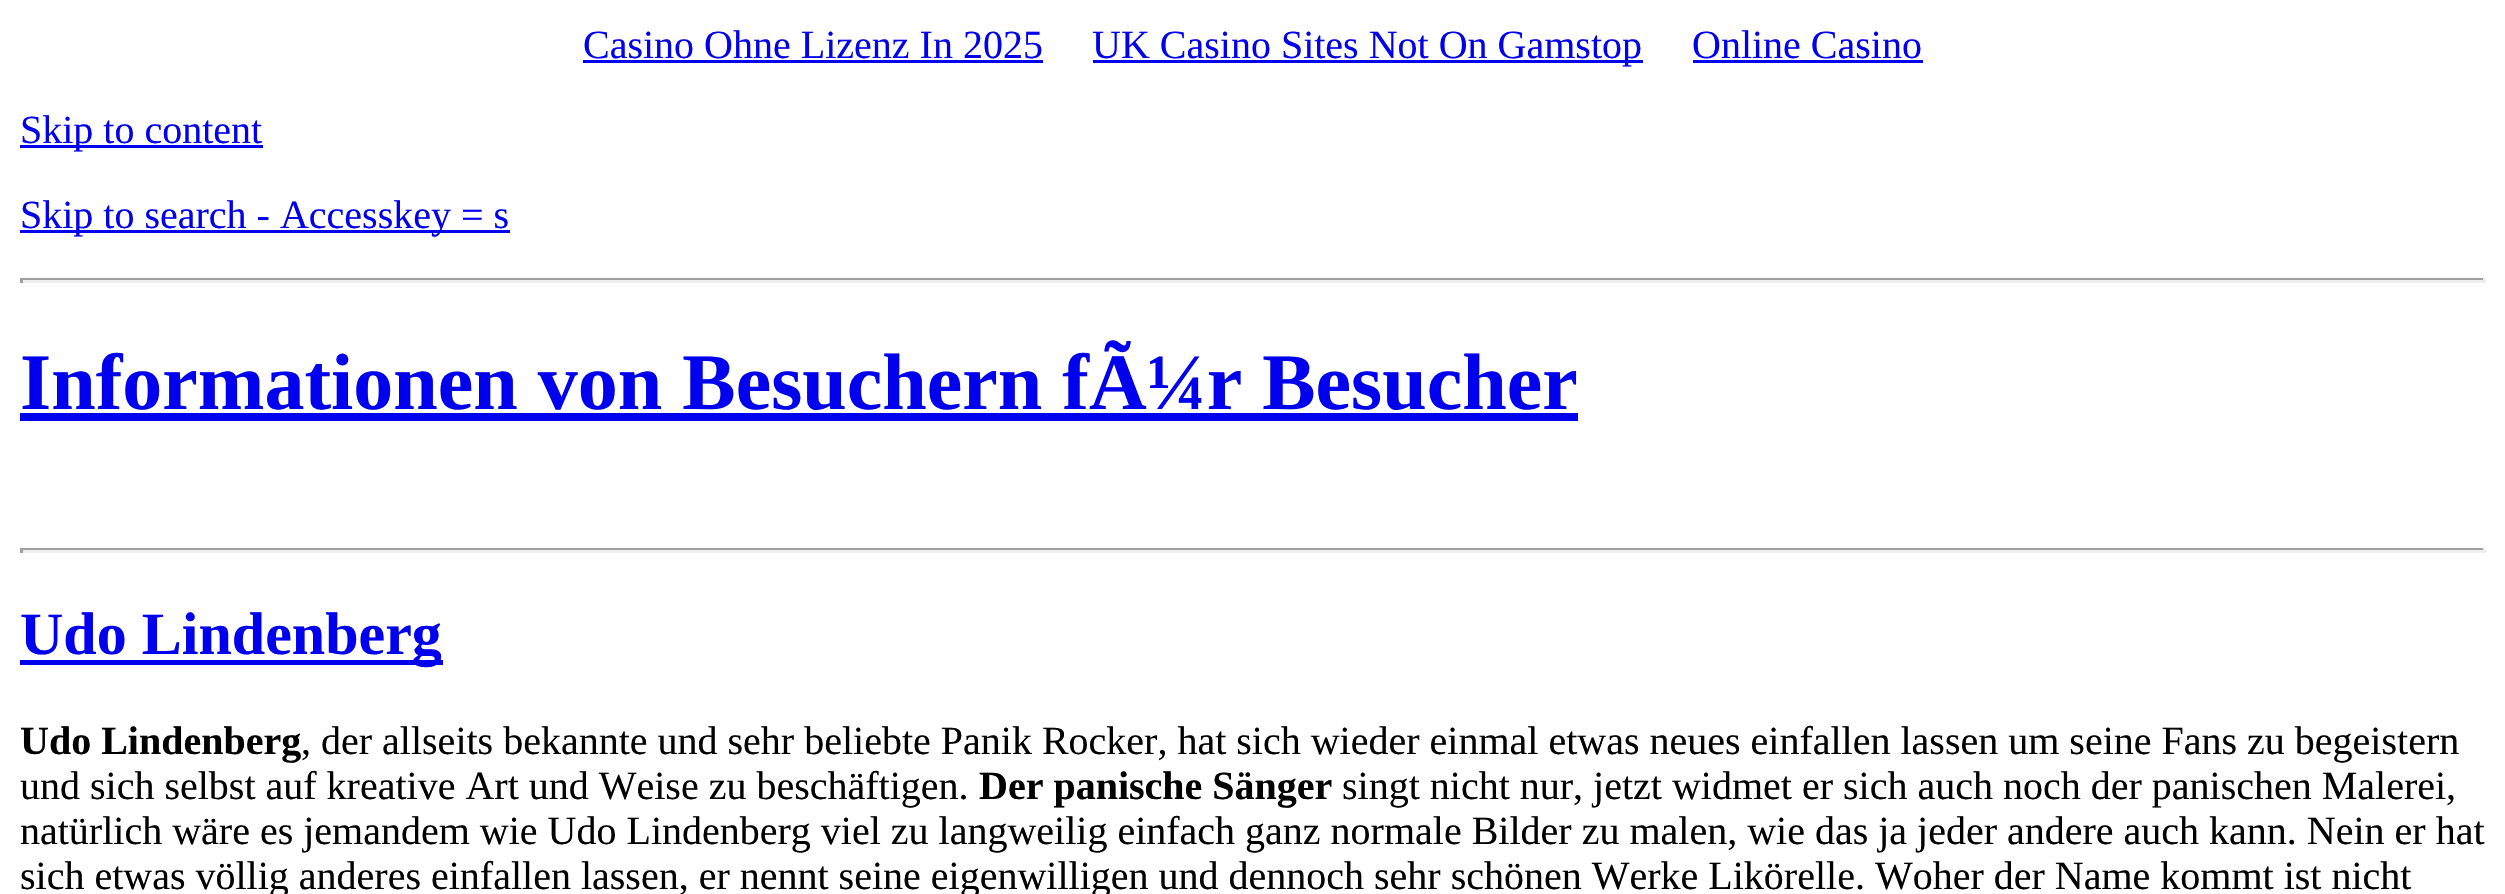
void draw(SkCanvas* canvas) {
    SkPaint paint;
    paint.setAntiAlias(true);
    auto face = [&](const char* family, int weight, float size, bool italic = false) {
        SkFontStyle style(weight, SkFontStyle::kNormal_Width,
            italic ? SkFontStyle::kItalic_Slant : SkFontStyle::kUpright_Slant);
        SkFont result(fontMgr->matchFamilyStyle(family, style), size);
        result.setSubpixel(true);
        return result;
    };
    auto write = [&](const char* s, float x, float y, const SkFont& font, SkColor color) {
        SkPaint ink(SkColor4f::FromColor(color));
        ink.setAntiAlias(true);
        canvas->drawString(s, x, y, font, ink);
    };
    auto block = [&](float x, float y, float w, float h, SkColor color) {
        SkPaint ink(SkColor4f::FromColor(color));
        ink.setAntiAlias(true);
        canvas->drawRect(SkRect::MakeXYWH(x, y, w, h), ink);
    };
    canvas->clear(SK_ColorWHITE);
    auto kFont1 = face("Liberation Serif", 400, 40);
    write("Casino Ohne Lizenz In 2025", 583, 58, kFont1, SkColorSetRGB(0, 0, 238));
    block(583, 60, 460, 3, SkColorSetRGB(0, 0, 238));
    block(1093, 60, 550, 3, SkColorSetRGB(0, 0, 238));
    write("UK Casino Sites Not On Gamstop", 1092, 58, kFont1, SkColorSetRGB(0, 0, 238));
    write("Online Casino", 1692, 58, kFont1, SkColorSetRGB(0, 0, 238));
    block(1693, 60, 230, 3, SkColorSetRGB(0, 0, 238));
    block(20, 145, 243, 3, SkColorSetRGB(0, 0, 238));
    write("Skip to content", 20, 143, kFont1, SkColorSetRGB(0, 0, 238));
    block(20, 230, 490, 3, SkColorSetRGB(0, 0, 238));
    write("Skip to search - Accesskey = s", 20, 228, kFont1, SkColorSetRGB(0, 0, 238));
    block(20, 278, 2465, 2, SkColorSetRGB(159, 159, 159));
    block(2483, 278, 3, 5, SkColorSetRGB(238, 238, 238));
    block(20, 280, 2465, 3, SkColorSetRGB(238, 238, 238));
    block(20, 278, 3, 5, SkColorSetRGB(159, 159, 159));
    auto kFont2 = face("Liberation Serif", 700, 80);
    write("Informationen von Besuchern fÃ¼r Besucher", 20, 409, kFont2, SkColorSetRGB(0, 0, 238));
    block(20, 413, 1558, 8, SkColorSetRGB(0, 0, 238));
    block(20, 548, 2465, 2, SkColorSetRGB(159, 159, 159));
    block(2483, 548, 3, 5, SkColorSetRGB(238, 238, 238));
    block(20, 550, 2465, 3, SkColorSetRGB(238, 238, 238));
    block(20, 548, 3, 5, SkColorSetRGB(159, 159, 159));
    block(20, 660, 423, 5, SkColorSetRGB(0, 0, 238));
    auto kFont3 = face("Liberation Serif", 700, 60);
    write("Udo Lindenberg", 20, 654, kFont3, SkColorSetRGB(0, 0, 238));
    auto kFont4 = face("Liberation Serif", 700, 40);
    write("Udo Lindenberg", 20, 754, kFont4, SK_ColorBLACK);
    write(", der allseits bekannte und sehr beliebte Panik Rocker, hat sich wieder einmal etwas neues einfallen lassen um seine Fans zu begeistern", 301, 754, kFont1, SK_ColorBLACK);
    write("und sich selbst auf kreative Art und Weise zu beschäftigen.", 20, 799, kFont1, SK_ColorBLACK);
    write("Der panische Sänger", 979, 799, kFont4, SK_ColorBLACK);
    write("singt nicht nur, jetzt widmet er sich auch noch der panischen Malerei,", 1342, 799, kFont1, SK_ColorBLACK);
    write("natürlich wäre es jemandem wie Udo Lindenberg viel zu langweilig einfach ganz normale Bilder zu malen, wie das ja jeder andere auch kann. Nein er hat", 20, 844, kFont1, SK_ColorBLACK);
    write("sich etwas völlig anderes einfallen lassen, er nennt seine eigenwilligen und dennoch sehr schönen Werke Likörelle. Woher der Name kommt ist nicht", 20, 889, kFont1, SK_ColorBLACK);
}
